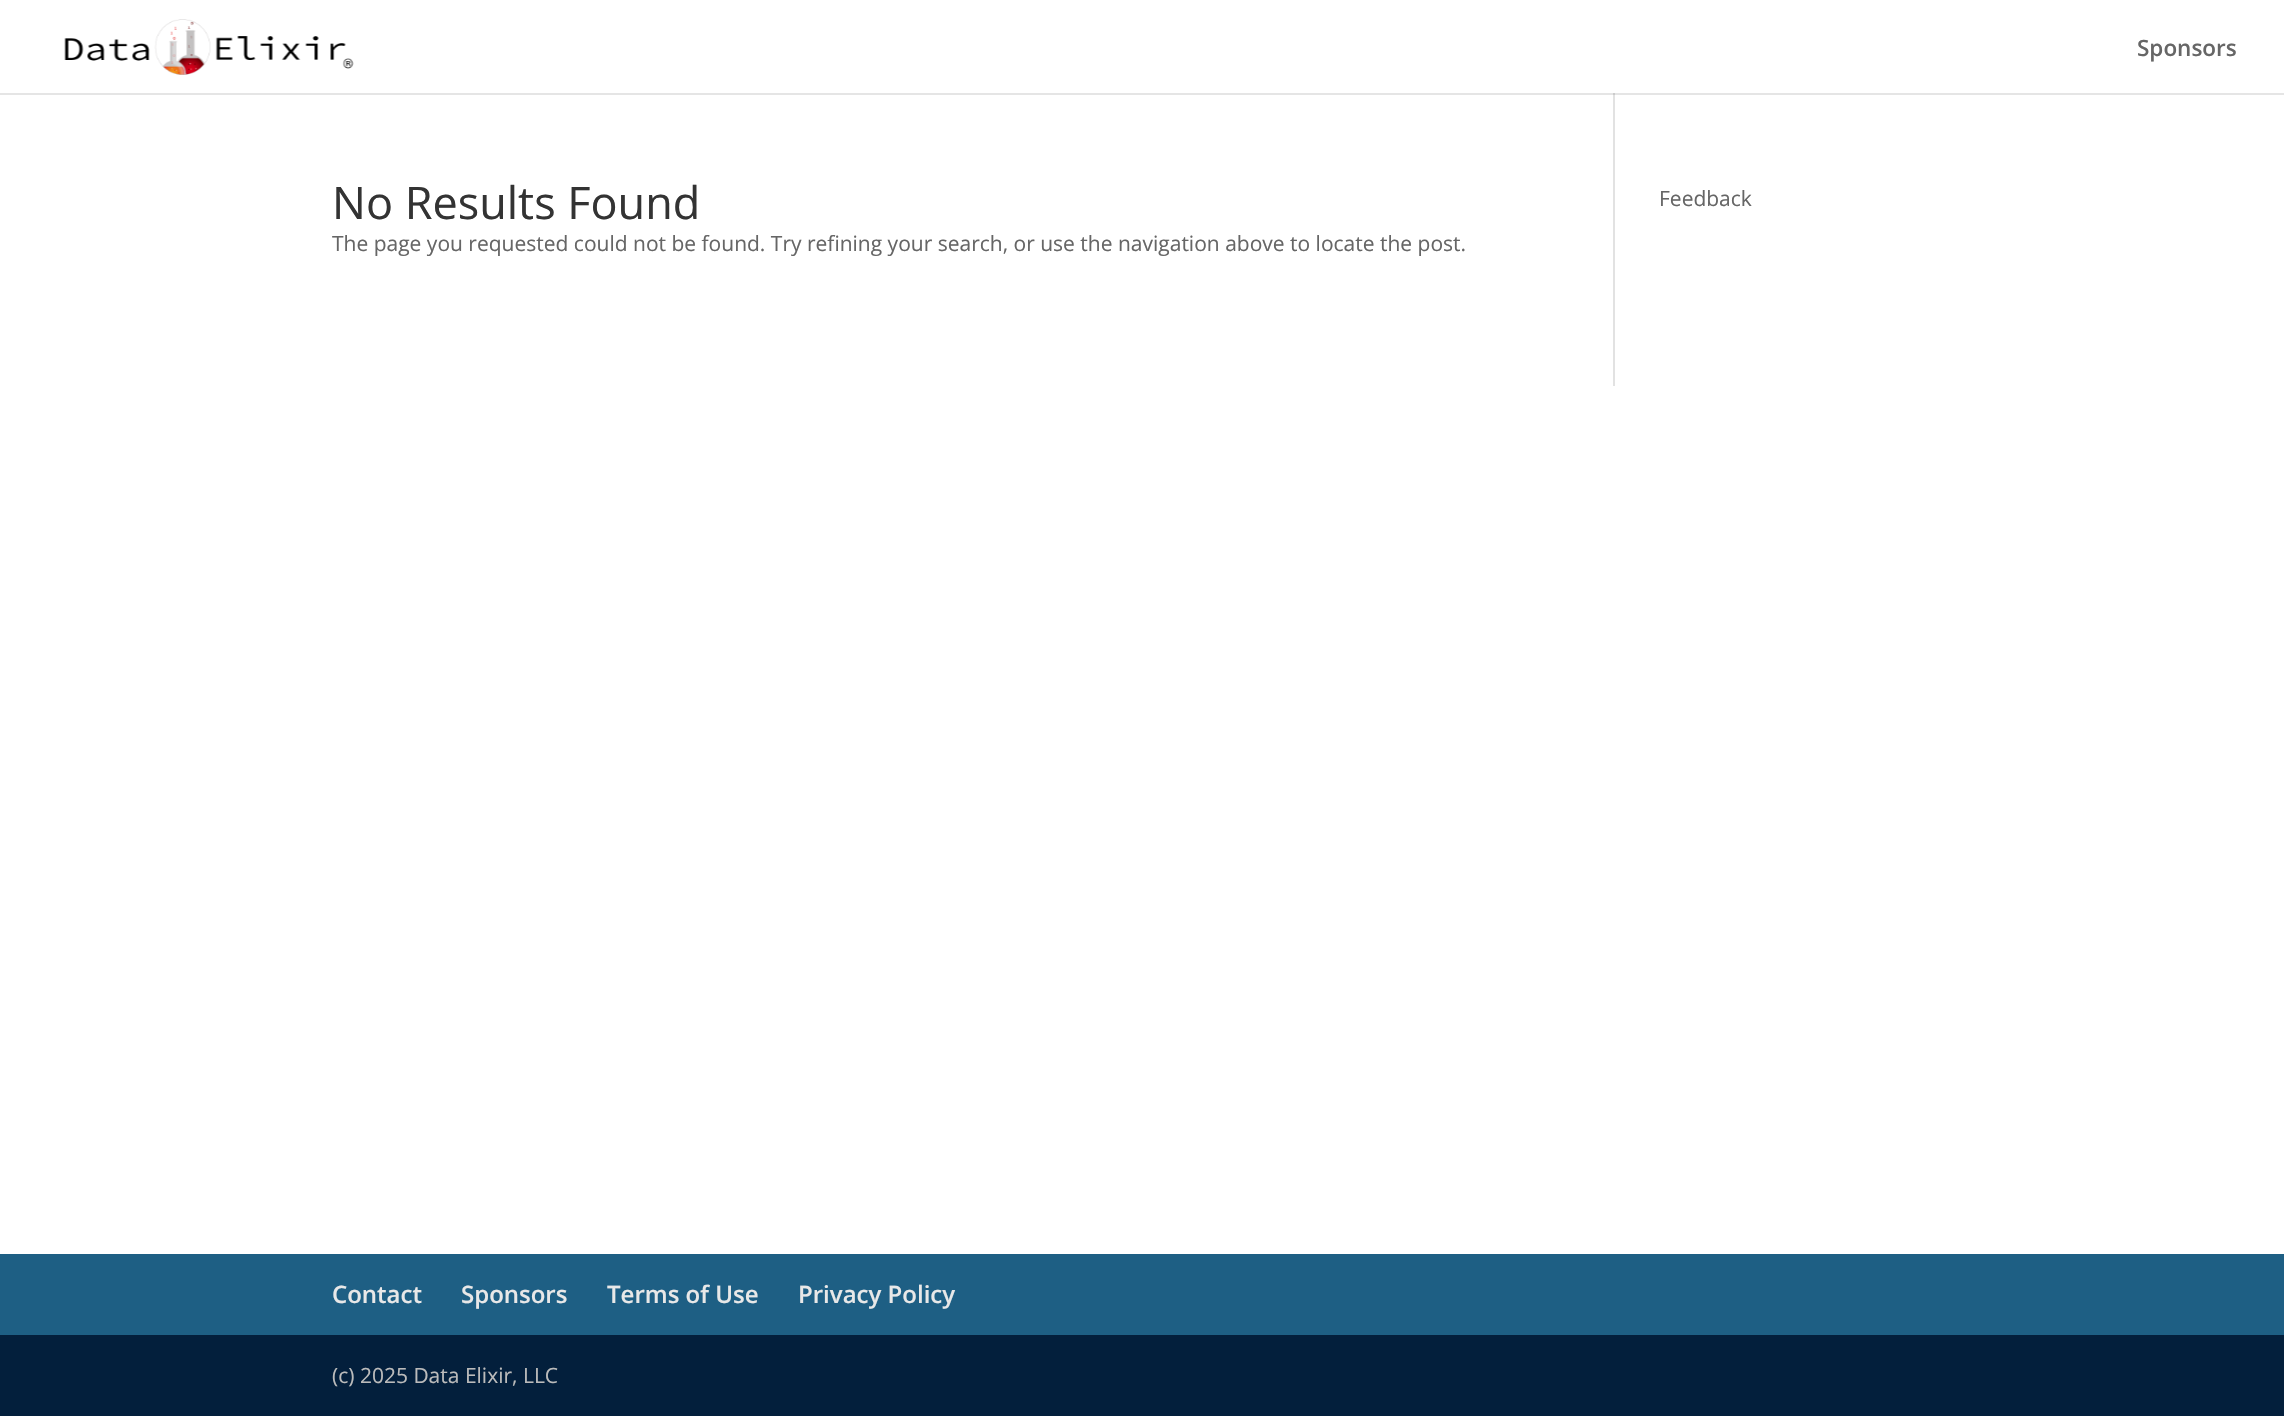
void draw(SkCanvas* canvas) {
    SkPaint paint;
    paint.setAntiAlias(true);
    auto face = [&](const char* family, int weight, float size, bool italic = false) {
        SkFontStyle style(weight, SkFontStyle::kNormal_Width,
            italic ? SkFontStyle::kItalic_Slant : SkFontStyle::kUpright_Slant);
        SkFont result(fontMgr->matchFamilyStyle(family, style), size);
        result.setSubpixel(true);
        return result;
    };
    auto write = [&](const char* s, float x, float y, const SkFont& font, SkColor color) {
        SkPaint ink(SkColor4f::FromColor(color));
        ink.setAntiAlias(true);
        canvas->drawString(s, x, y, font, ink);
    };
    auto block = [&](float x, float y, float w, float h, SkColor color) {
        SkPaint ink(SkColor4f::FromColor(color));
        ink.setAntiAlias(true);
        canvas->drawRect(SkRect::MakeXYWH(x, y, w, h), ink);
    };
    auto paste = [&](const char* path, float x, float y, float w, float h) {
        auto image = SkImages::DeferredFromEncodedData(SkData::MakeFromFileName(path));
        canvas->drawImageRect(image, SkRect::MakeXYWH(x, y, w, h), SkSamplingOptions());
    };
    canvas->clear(SK_ColorWHITE);
    block(1613, 93, 2, 293, SkColorSetRGB(226, 226, 226));
    paint.setColor(SkColorSetARGB(26, 0, 0, 0));
    canvas->drawPath(SkPathBuilder().moveTo(0, 93).lineTo(0, 95).lineTo(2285, 95).lineTo(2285, 2).lineTo(2284, 2).lineTo(2284, 93).close().detach(), paint);
    paste("pic1.png", 64, 19, 290, 56);
    auto kFont1 = face("Open Sans", 600, 22.5f);
    write("Sponsors", 2137, 56, kFont1, SkColorSetRGB(102, 102, 102));
    auto kFont2 = face("Open Sans", 400, 45);
    write("No Results Found", 332, 219, kFont2, SkColorSetRGB(51, 51, 51));
    auto kFont3 = face("Open Sans", 400, 21);
    write("The page you requested could not be found. Try refining your search, or use the navigation above to locate the post.", 332, 251, kFont3, SkColorSetRGB(102, 102, 102));
    write("Feedback", 1659, 206, kFont3, SkColorSetRGB(102, 102, 102));
    block(0, 1254, 2284, 81, SkColorSetRGB(30, 95, 132));
    auto kFont4 = face("Open Sans", 600, 24);
    write("Contact", 332, 1303, kFont4, SkColorSetRGB(232, 232, 232));
    write("Sponsors", 461, 1303, kFont4, SkColorSetRGB(232, 232, 232));
    write("Terms of Use", 607, 1303, kFont4, SkColorSetRGB(232, 232, 232));
    write("Privacy Policy", 798, 1303, kFont4, SkColorSetRGB(232, 232, 232));
    block(0, 1335, 2284, 81, SkColorSetRGB(3, 31, 60));
    write("(c) 2025 Data Elixir, LLC", 332, 1383, kFont3, SkColorSetRGB(187, 187, 187));
}
